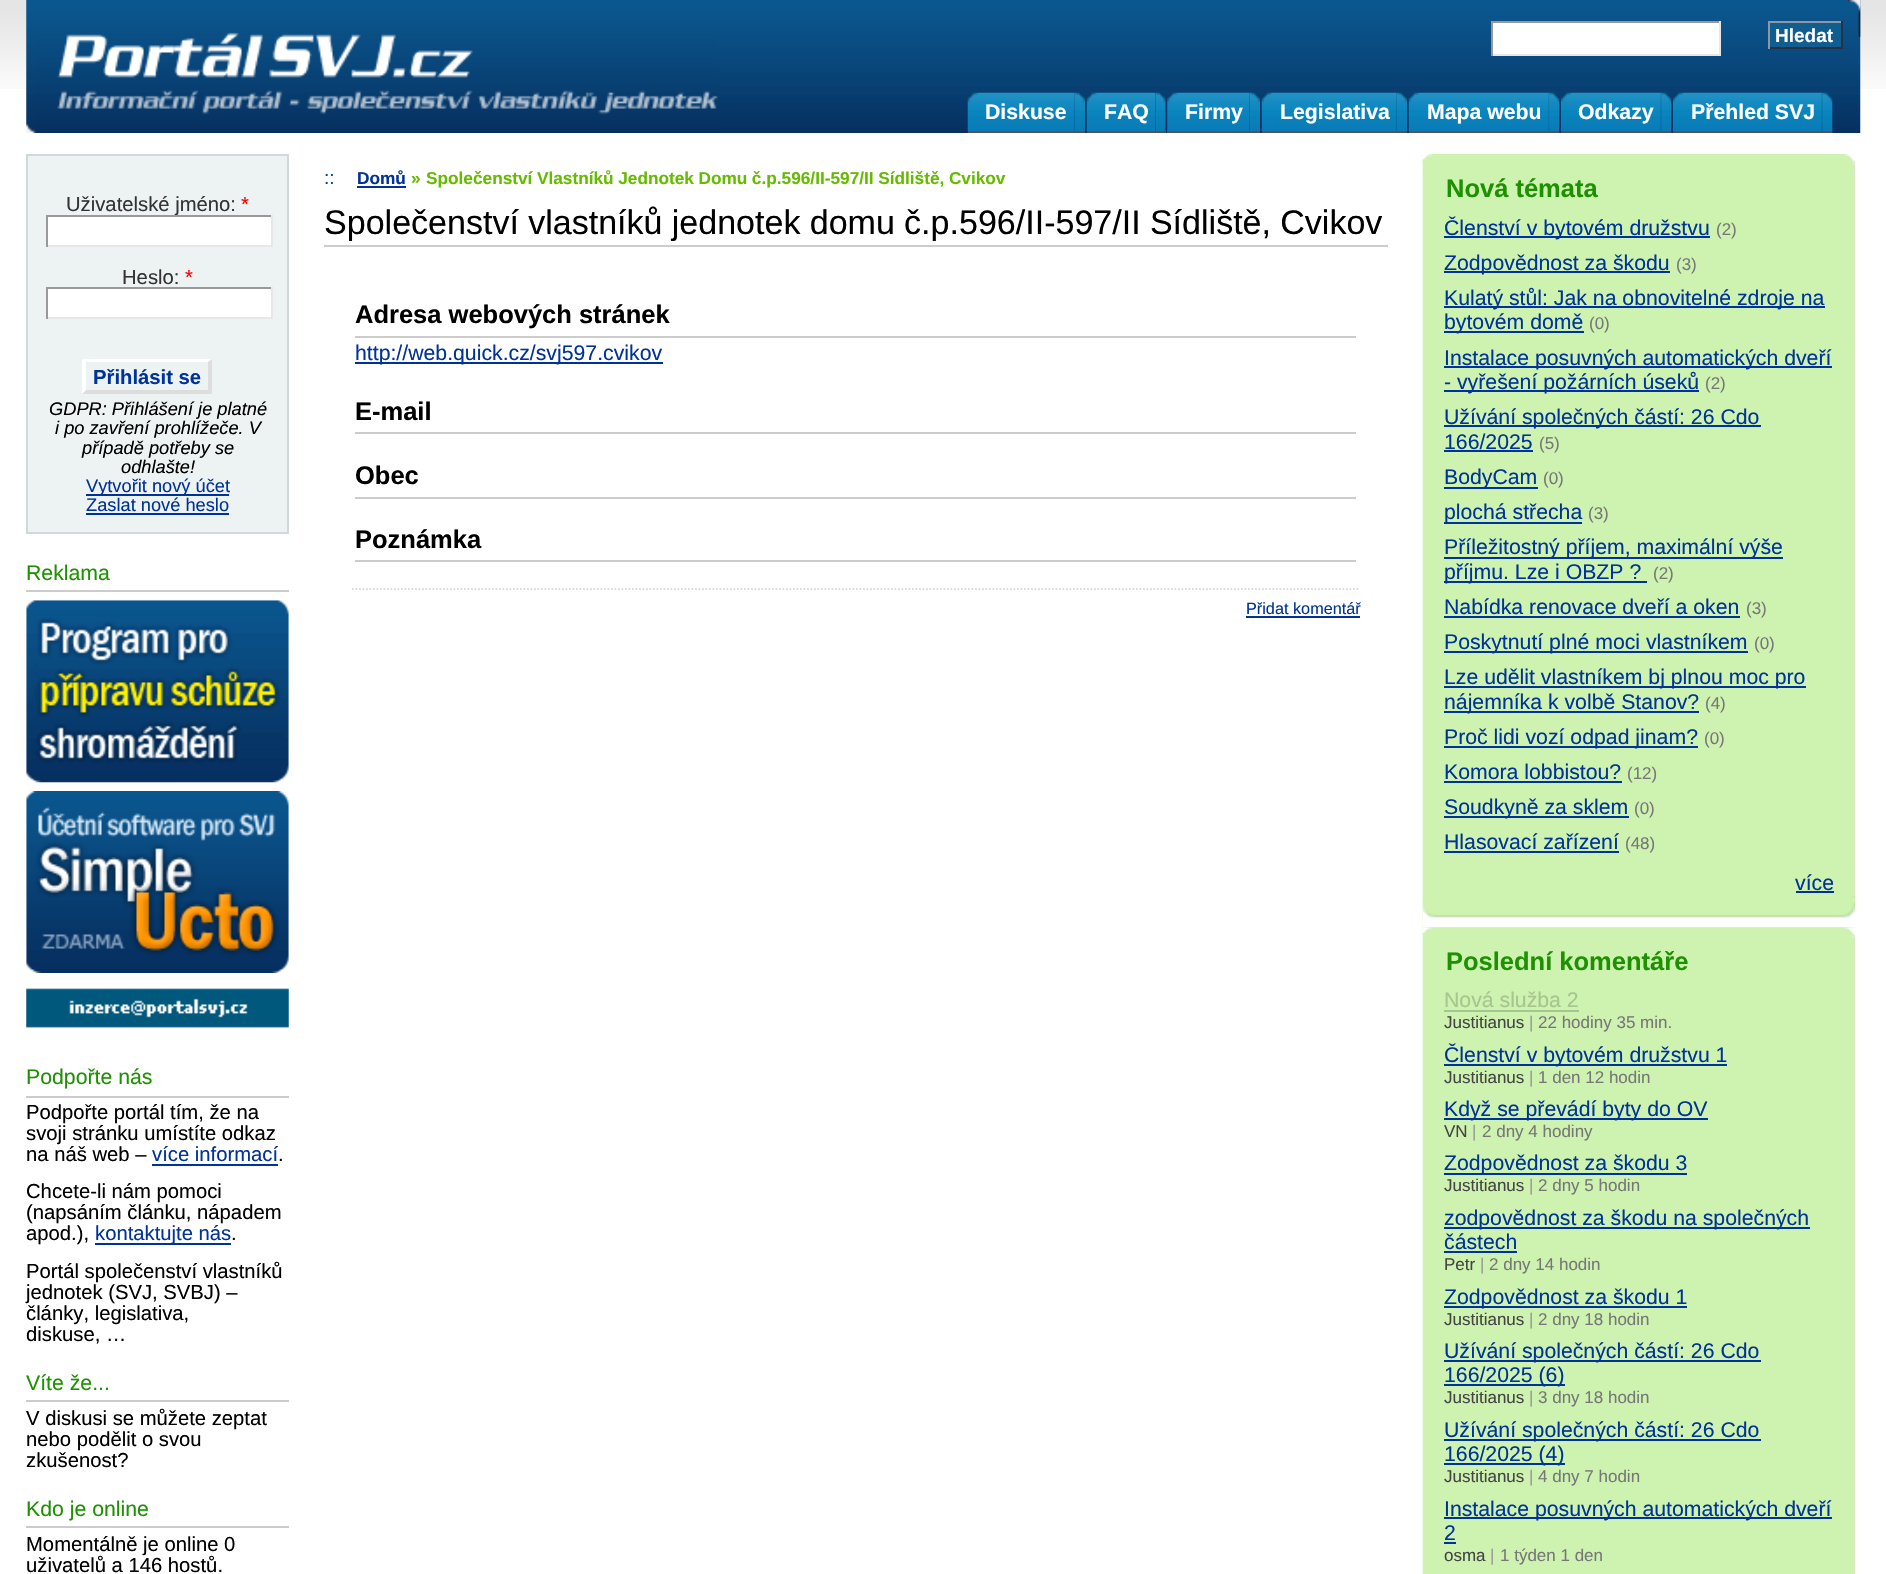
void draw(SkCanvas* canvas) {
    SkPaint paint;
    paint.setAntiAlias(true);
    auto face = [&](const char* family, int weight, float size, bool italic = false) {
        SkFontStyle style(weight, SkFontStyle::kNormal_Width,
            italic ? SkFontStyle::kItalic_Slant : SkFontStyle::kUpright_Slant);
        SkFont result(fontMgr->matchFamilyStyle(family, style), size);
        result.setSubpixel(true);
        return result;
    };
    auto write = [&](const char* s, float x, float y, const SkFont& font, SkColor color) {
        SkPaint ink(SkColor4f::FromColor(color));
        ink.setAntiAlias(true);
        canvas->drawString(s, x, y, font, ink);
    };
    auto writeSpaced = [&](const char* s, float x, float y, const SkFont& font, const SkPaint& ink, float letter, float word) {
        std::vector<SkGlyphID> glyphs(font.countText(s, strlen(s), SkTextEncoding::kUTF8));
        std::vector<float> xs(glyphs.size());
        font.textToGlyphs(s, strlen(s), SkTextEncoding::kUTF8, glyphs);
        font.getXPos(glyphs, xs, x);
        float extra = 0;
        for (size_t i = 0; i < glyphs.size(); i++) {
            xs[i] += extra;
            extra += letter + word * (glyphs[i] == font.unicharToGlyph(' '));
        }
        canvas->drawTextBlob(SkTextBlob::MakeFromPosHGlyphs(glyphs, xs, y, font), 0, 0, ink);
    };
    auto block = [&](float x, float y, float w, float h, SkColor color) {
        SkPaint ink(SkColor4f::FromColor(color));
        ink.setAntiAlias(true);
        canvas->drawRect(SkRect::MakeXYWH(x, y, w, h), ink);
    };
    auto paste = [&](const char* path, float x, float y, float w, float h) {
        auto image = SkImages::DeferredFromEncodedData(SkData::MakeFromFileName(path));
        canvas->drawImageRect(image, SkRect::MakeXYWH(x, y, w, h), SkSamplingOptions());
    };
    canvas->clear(SK_ColorWHITE);
    paste("pic1.png", 0, 0, 1886, 89);
    paste("pic2.png", 26, 0, 1835, 133);
    paste("pic3.png", 35, 32, 683, 100);
    paste("pic4.png", 1848, 0, 13, 37);
    block(1493, 23, 226, 31, SK_ColorWHITE);
    block(1491, 21, 229, 2, SkColorSetRGB(153, 153, 153));
    block(1719, 21, 2, 35, SkColorSetRGB(231, 231, 231));
    block(1491, 54, 229, 2, SkColorSetRGB(231, 231, 231));
    block(1491, 21, 2, 35, SkColorSetRGB(153, 153, 153));
    block(1770, 23, 71, 24, SkColorSetRGB(16, 93, 144));
    block(1768, 21, 75, 2, SkColorSetRGB(144, 151, 162));
    block(1841, 21, 2, 28, SkColorSetRGB(40, 48, 67));
    block(1768, 47, 75, 2, SkColorSetRGB(40, 48, 67));
    block(1768, 21, 2, 28, SkColorSetRGB(144, 151, 162));
    auto kFont1 = face("Liberation Sans", 700, 19);
    write("Hledat", 1775, 42, kFont1, SK_ColorWHITE);
    paste("pic5.png", 1074, 92, 11, 39);
    block(968, 131, 117, 2, SkColorSetRGB(81, 83, 88));
    paste("pic6.png", 967, 92, 108, 40);
    auto kFont2 = face("Liberation Sans", 700, 21.25f);
    write("Diskuse", 985, 119, kFont2, SK_ColorWHITE);
    paste("pic7.png", 1155, 92, 11, 39);
    block(1087, 131, 79, 2, SkColorSetRGB(81, 83, 88));
    paste("pic8.png", 1086, 92, 69, 40);
    write("FAQ", 1104, 119, kFont2, SK_ColorWHITE);
    paste("pic9.png", 1249, 92, 11, 39);
    block(1167, 131, 93, 2, SkColorSetRGB(81, 83, 88));
    paste("pic10.png", 1167, 92, 83, 40);
    write("Firmy", 1185, 119, kFont2, SK_ColorWHITE);
    paste("pic11.png", 1396, 92, 11, 39);
    block(1262, 131, 145, 2, SkColorSetRGB(81, 83, 88));
    paste("pic12.png", 1261, 92, 136, 40);
    write("Legislativa", 1280, 119, kFont2, SK_ColorWHITE);
    paste("pic13.png", 1548, 92, 12, 41);
    block(1409, 131, 150, 2, SkColorSetRGB(81, 83, 88));
    paste("pic14.png", 1408, 92, 141, 40);
    write("Mapa webu", 1427, 119, kFont2, SK_ColorWHITE);
    paste("pic15.png", 1660, 92, 12, 41);
    block(1561, 131, 110, 2, SkColorSetRGB(81, 83, 88));
    paste("pic16.png", 1561, 92, 100, 40);
    write("Odkazy", 1578, 119, kFont2, SK_ColorWHITE);
    paste("pic17.png", 1821, 92, 12, 41);
    block(1673, 131, 159, 2, SkColorSetRGB(81, 83, 88));
    paste("pic18.png", 1673, 92, 149, 40);
    write("Přehled SVJ", 1691, 119, kFont2, SK_ColorWHITE);
    paint.setColor(SkColorSetRGB(237, 242, 242));
    canvas->drawRect(SkRect::MakeXYWH(27, 155, 261, 378), paint);
    paint.setStyle(SkPaint::kStroke_Style);
    paint.setStrokeWidth(2);
    paint.setColor(SkColorSetRGB(208, 217, 217));
    canvas->drawRect(SkRect::MakeXYWH(27, 155, 261, 378), paint);
    auto kFont3 = face("Liberation Sans", 400, 20.25f);
    write("Uživatelské jméno:", 66, 211, kFont3, SkColorSetRGB(51, 51, 51));
    write("*", 241, 211, kFont3, SkColorSetRGB(255, 0, 0));
    block(48, 217, 223, 28, SK_ColorWHITE);
    block(46, 215, 227, 2, SkColorSetRGB(153, 153, 153));
    block(271, 215, 2, 32, SkColorSetRGB(231, 231, 231));
    block(46, 245, 227, 2, SkColorSetRGB(231, 231, 231));
    block(46, 215, 2, 32, SkColorSetRGB(153, 153, 153));
    write("Heslo:", 122, 284, kFont3, SkColorSetRGB(51, 51, 51));
    write("*", 185, 284, kFont3, SkColorSetRGB(255, 0, 0));
    block(48, 289, 223, 28, SK_ColorWHITE);
    block(46, 287, 227, 2, SkColorSetRGB(153, 153, 153));
    block(271, 287, 2, 32, SkColorSetRGB(231, 231, 231));
    block(46, 317, 227, 2, SkColorSetRGB(231, 231, 231));
    block(46, 287, 2, 32, SkColorSetRGB(153, 153, 153));
    paint.setStyle(SkPaint::kFill_Style);
    paint.setColor(SK_ColorWHITE);
    canvas->drawPath(SkPathBuilder().moveTo(82, 359).lineTo(212, 359).lineTo(208, 362).lineTo(86, 362).close().detach(), paint);
    paint.setColor(SkColorSetRGB(221, 221, 221));
    canvas->drawPath(SkPathBuilder().moveTo(212, 359).lineTo(212, 394).lineTo(208, 390).lineTo(208, 362).close().detach(), paint);
    canvas->drawPath(SkPathBuilder().moveTo(212, 394).lineTo(82, 394).lineTo(86, 390).lineTo(208, 390).close().detach(), paint);
    paint.setColor(SK_ColorWHITE);
    canvas->drawPath(SkPathBuilder().moveTo(82, 394).lineTo(82, 359).lineTo(86, 362).lineTo(86, 390).close().detach(), paint);
    auto kFont4 = face("Liberation Sans", 700, 20.25f);
    write("Přihlásit se", 93, 384, kFont4, SkColorSetRGB(0, 51, 153));
    auto kFont5 = face("Liberation Sans", 400, 18.25f, true);
    write("GDPR: Přihlášení je platné", 49, 415, kFont5, SK_ColorBLACK);
    write("i po zavření prohlížeče. V", 55, 434, kFont5, SK_ColorBLACK);
    write("případě potřeby se", 82, 454, kFont5, SK_ColorBLACK);
    write("odhlašte!", 121, 473, kFont5, SK_ColorBLACK);
    block(86, 494, 143, 2, SkColorSetRGB(0, 51, 153));
    auto kFont6 = face("Liberation Sans", 400, 18.25f);
    write("Vytvořit nový účet", 86, 492, kFont6, SkColorSetRGB(0, 51, 153));
    write("Zaslat nové heslo", 86, 511, kFont6, SkColorSetRGB(0, 51, 153));
    block(86, 513, 143, 2, SkColorSetRGB(0, 51, 153));
    block(26, 590, 263, 2, SkColorSetRGB(204, 204, 204));
    auto kFont7 = face("Liberation Sans", 400, 21.25f);
    write("Reklama", 26, 580, kFont7, SkColorSetRGB(29, 145, 1));
    paste("pic19.png", 26, 600, 263, 183);
    paste("pic20.png", 26, 791, 263, 182);
    paste("pic21.png", 26, 988, 263, 40);
    block(26, 1096, 263, 2, SkColorSetRGB(204, 204, 204));
    write("Podpořte nás", 26, 1084, kFont7, SkColorSetRGB(29, 145, 1));
    write("Podpořte portál tím, že na", 26, 1119, kFont3, SK_ColorBLACK);
    write("svoji stránku umístíte odkaz", 26, 1140, kFont3, SK_ColorBLACK);
    write("na náš web –", 26, 1161, kFont3, SK_ColorBLACK);
    write("více informací", 152, 1161, kFont3, SkColorSetRGB(0, 51, 153));
    block(152, 1164, 126, 2, SkColorSetRGB(0, 51, 153));
    write(".", 278, 1161, kFont3, SK_ColorBLACK);
    write("Chcete-li nám pomoci", 26, 1198, kFont3, SK_ColorBLACK);
    write("(napsáním článku, nápadem", 26, 1219, kFont3, SK_ColorBLACK);
    write("apod.),", 26, 1240, kFont3, SK_ColorBLACK);
    block(95, 1243, 136, 2, SkColorSetRGB(0, 51, 153));
    write("kontaktujte nás", 95, 1240, kFont3, SkColorSetRGB(0, 51, 153));
    write(".", 231, 1240, kFont3, SK_ColorBLACK);
    write("Portál společenství vlastníků", 26, 1278, kFont3, SK_ColorBLACK);
    write("jednotek (SVJ, SVBJ) –", 26, 1299, kFont3, SK_ColorBLACK);
    write("články, legislativa,", 26, 1320, kFont3, SK_ColorBLACK);
    write("diskuse, …", 26, 1341, kFont3, SK_ColorBLACK);
    block(26, 1400, 263, 2, SkColorSetRGB(204, 204, 204));
    write("Víte že...", 26, 1390, kFont7, SkColorSetRGB(29, 145, 1));
    write("V diskusi se můžete zeptat", 26, 1425, kFont3, SK_ColorBLACK);
    write("nebo podělit o svou", 26, 1446, kFont3, SK_ColorBLACK);
    write("zkušenost?", 26, 1467, kFont3, SK_ColorBLACK);
    block(26, 1526, 263, 2, SkColorSetRGB(204, 204, 204));
    write("Kdo je online", 26, 1516, kFont7, SkColorSetRGB(29, 145, 1));
    write("Momentálně je online 0", 26, 1551, kFont3, SK_ColorBLACK);
    write("uživatelů a 146 hostů.", 26, 1572, kFont3, SK_ColorBLACK);
    auto kFont8 = face("Liberation Sans", 400, 19);
    write("::", 324, 184, kFont8, SkColorSetRGB(0, 77, 129));
    auto kFont9 = face("Liberation Sans", 700, 17.25f);
    write("Domů", 357, 184, kFont9, SkColorSetRGB(0, 51, 153));
    block(357, 186, 49, 2, SkColorSetRGB(0, 51, 153));
    write("»", 411, 184, kFont9, SkColorSetRGB(102, 187, 0));
    paint.setColor(SkColorSetRGB(102, 187, 0));
    writeSpaced("Společenství Vlastníků Jednotek Domu č.p.596/II-597/II Sídliště, Cvikov", 426, 184, kFont9, paint, 0, -0.25f);
    block(324, 245, 1064, 2, SkColorSetRGB(204, 204, 204));
    auto kFont10 = face("Liberation Sans", 400, 34.05f);
    paint.setColor(SK_ColorBLACK);
    writeSpaced("Společenství vlastníků jednotek domu č.p.596/II-597/II Sídliště, Cvikov", 324, 234, kFont10, paint, 0, -0.25f);
    block(355, 336, 1001, 2, SkColorSetRGB(204, 204, 204));
    auto kFont11 = face("Liberation Sans", 700, 25.5f);
    write("Adresa webových stránek", 355, 323, kFont11, SK_ColorBLACK);
    block(355, 362, 308, 2, SkColorSetRGB(0, 51, 153));
    write("http://web.quick.cz/svj597.cvikov", 355, 360, kFont7, SkColorSetRGB(0, 51, 153));
    block(355, 432, 1001, 2, SkColorSetRGB(204, 204, 204));
    write("E-mail", 355, 420, kFont11, SK_ColorBLACK);
    block(355, 497, 1001, 2, SkColorSetRGB(204, 204, 204));
    write("Obec", 355, 484, kFont11, SK_ColorBLACK);
    block(355, 560, 1001, 2, SkColorSetRGB(204, 204, 204));
    write("Poznámka", 355, 548, kFont11, SK_ColorBLACK);
    paint.setStyle(SkPaint::kStroke_Style);
    paint.setStrokeWidth(1.8f);
    paint.setColor(SkColorSetRGB(221, 221, 221));
    paint.setPathEffect(SkDashPathEffect::Make({{1.75f, 1.75f}}, 0));
    canvas->drawPath(SkPathBuilder().moveTo(352, 589).lineTo(1360, 589).detach(), paint);
    paint.setPathEffect(nullptr);
    auto kFont12 = face("Liberation Sans", 400, 16.25f);
    write("Přidat komentář", 1246, 614, kFont12, SkColorSetRGB(0, 51, 153));
    block(1246, 616, 114, 2, SkColorSetRGB(0, 51, 153));
    paste("pic22.png", 1422, 154, 433, 774);
    paste("pic23.png", 1422, 154, 433, 11);
    write("Nová témata", 1446, 197, kFont11, SkColorSetRGB(29, 145, 1));
    paste("pic24.png", 1422, 896, 433, 32);
    block(1444, 236, 266, 2, SkColorSetRGB(0, 51, 153));
    write("Členství v bytovém družstvu", 1444, 235, kFont7, SkColorSetRGB(0, 51, 153));
    auto kFont13 = face("Liberation Sans", 400, 17);
    write("(2)", 1716, 235, kFont13, SkColorSetRGB(119, 119, 119));
    block(1444, 271, 226, 2, SkColorSetRGB(0, 51, 153));
    write("Zodpovědnost za škodu", 1444, 270, kFont7, SkColorSetRGB(0, 51, 153));
    write("(3)", 1676, 270, kFont13, SkColorSetRGB(119, 119, 119));
    block(1444, 306, 381, 2, SkColorSetRGB(0, 51, 153));
    write("Kulatý stůl: Jak na obnovitelné zdroje na", 1444, 305, kFont7, SkColorSetRGB(0, 51, 153));
    block(1444, 331, 140, 2, SkColorSetRGB(0, 51, 153));
    write("bytovém domě", 1444, 329, kFont7, SkColorSetRGB(0, 51, 153));
    write("(0)", 1589, 329, kFont13, SkColorSetRGB(119, 119, 119));
    block(1444, 366, 388, 2, SkColorSetRGB(0, 51, 153));
    write("Instalace posuvných automatických dveří", 1444, 365, kFont7, SkColorSetRGB(0, 51, 153));
    block(1444, 390, 255, 2, SkColorSetRGB(0, 51, 153));
    write("- vyřešení požárních úseků", 1444, 389, kFont7, SkColorSetRGB(0, 51, 153));
    write("(2)", 1705, 389, kFont13, SkColorSetRGB(119, 119, 119));
    block(1444, 425, 317, 2, SkColorSetRGB(0, 51, 153));
    write("Užívání společných částí: 26 Cdo", 1444, 424, kFont7, SkColorSetRGB(0, 51, 153));
    write("166/2025", 1444, 449, kFont7, SkColorSetRGB(0, 51, 153));
    block(1444, 450, 89, 2, SkColorSetRGB(0, 51, 153));
    write("(5)", 1539, 449, kFont13, SkColorSetRGB(119, 119, 119));
    block(1444, 487, 94, 2, SkColorSetRGB(0, 51, 153));
    write("BodyCam", 1444, 484, kFont7, SkColorSetRGB(0, 51, 153));
    write("(0)", 1543, 484, kFont13, SkColorSetRGB(119, 119, 119));
    block(1444, 522, 138, 2, SkColorSetRGB(0, 51, 153));
    write("plochá střecha", 1444, 519, kFont7, SkColorSetRGB(0, 51, 153));
    write("(3)", 1588, 519, kFont13, SkColorSetRGB(119, 119, 119));
    block(1444, 557, 339, 2, SkColorSetRGB(0, 51, 153));
    write("Příležitostný příjem, maximální výše", 1444, 554, kFont7, SkColorSetRGB(0, 51, 153));
    block(1444, 581, 203, 2, SkColorSetRGB(0, 51, 153));
    write("příjmu. Lze i OBZP ?", 1444, 579, kFont7, SkColorSetRGB(0, 51, 153));
    write("(2)", 1653, 579, kFont13, SkColorSetRGB(119, 119, 119));
    write("Nabídka renovace dveří a oken", 1444, 614, kFont7, SkColorSetRGB(0, 51, 153));
    block(1444, 616, 296, 2, SkColorSetRGB(0, 51, 153));
    write("(3)", 1746, 614, kFont13, SkColorSetRGB(119, 119, 119));
    block(1444, 651, 304, 2, SkColorSetRGB(0, 51, 153));
    write("Poskytnutí plné moci vlastníkem", 1444, 649, kFont7, SkColorSetRGB(0, 51, 153));
    write("(0)", 1754, 649, kFont13, SkColorSetRGB(119, 119, 119));
    block(1444, 686, 362, 2, SkColorSetRGB(0, 51, 153));
    write("Lze udělit vlastníkem bj plnou moc pro", 1444, 684, kFont7, SkColorSetRGB(0, 51, 153));
    block(1444, 711, 255, 2, SkColorSetRGB(0, 51, 153));
    write("nájemníka k volbě Stanov?", 1444, 709, kFont7, SkColorSetRGB(0, 51, 153));
    write("(4)", 1705, 709, kFont13, SkColorSetRGB(119, 119, 119));
    block(1444, 746, 254, 2, SkColorSetRGB(0, 51, 153));
    write("Proč lidi vozí odpad jinam?", 1444, 744, kFont7, SkColorSetRGB(0, 51, 153));
    write("(0)", 1704, 744, kFont13, SkColorSetRGB(119, 119, 119));
    write("Komora lobbistou?", 1444, 779, kFont7, SkColorSetRGB(0, 51, 153));
    block(1444, 781, 178, 2, SkColorSetRGB(0, 51, 153));
    write("(12)", 1627, 779, kFont13, SkColorSetRGB(119, 119, 119));
    block(1444, 816, 185, 2, SkColorSetRGB(0, 51, 153));
    write("Soudkyně za sklem", 1444, 814, kFont7, SkColorSetRGB(0, 51, 153));
    write("(0)", 1634, 814, kFont13, SkColorSetRGB(119, 119, 119));
    write("Hlasovací zařízení", 1444, 849, kFont7, SkColorSetRGB(0, 51, 153));
    block(1444, 851, 175, 2, SkColorSetRGB(0, 51, 153));
    write("(48)", 1625, 849, kFont13, SkColorSetRGB(119, 119, 119));
    write("více", 1795, 890, kFont7, SkColorSetRGB(0, 51, 153));
    block(1796, 891, 38, 2, SkColorSetRGB(0, 51, 153));
    paste("pic25.png", 1422, 927, 433, 647);
    paste("pic26.png", 1422, 927, 433, 11);
    write("Poslední komentáře", 1446, 970, kFont11, SkColorSetRGB(29, 145, 1));
    write("Nová služba 2", 1444, 1007, kFont7, SkColorSetRGB(167, 197, 142));
    block(1444, 1010, 135, 2, SkColorSetRGB(167, 197, 142));
    write("Justitianus", 1444, 1028, kFont13, SkColorSetRGB(68, 68, 68));
    write("|", 1529, 1028, kFont13, SkColorSetRGB(153, 153, 153));
    write("22 hodiny 35 min.", 1538, 1028, kFont13, SkColorSetRGB(119, 119, 119));
    block(1444, 1064, 283, 2, SkColorSetRGB(0, 51, 153));
    write("Členství v bytovém družstvu 1", 1444, 1062, kFont7, SkColorSetRGB(0, 51, 153));
    write("Justitianus", 1444, 1083, kFont13, SkColorSetRGB(68, 68, 68));
    write("|", 1529, 1083, kFont13, SkColorSetRGB(153, 153, 153));
    write("1 den 12 hodin", 1538, 1083, kFont13, SkColorSetRGB(119, 119, 119));
    block(1444, 1118, 264, 2, SkColorSetRGB(0, 51, 153));
    write("Když se převádí byty do OV", 1444, 1116, kFont7, SkColorSetRGB(0, 51, 153));
    write("VN", 1444, 1137, kFont13, SkColorSetRGB(68, 68, 68));
    write("|", 1472, 1137, kFont13, SkColorSetRGB(153, 153, 153));
    write("2 dny 4 hodiny", 1482, 1137, kFont13, SkColorSetRGB(119, 119, 119));
    block(1444, 1173, 243, 2, SkColorSetRGB(0, 51, 153));
    write("Zodpovědnost za škodu 3", 1444, 1170, kFont7, SkColorSetRGB(0, 51, 153));
    write("Justitianus", 1444, 1191, kFont13, SkColorSetRGB(68, 68, 68));
    write("|", 1529, 1191, kFont13, SkColorSetRGB(153, 153, 153));
    write("2 dny 5 hodin", 1538, 1191, kFont13, SkColorSetRGB(119, 119, 119));
    block(1444, 1227, 366, 2, SkColorSetRGB(0, 51, 153));
    write("zodpovědnost za škodu na společných", 1444, 1225, kFont7, SkColorSetRGB(0, 51, 153));
    write("částech", 1444, 1249, kFont7, SkColorSetRGB(0, 51, 153));
    block(1444, 1251, 73, 2, SkColorSetRGB(0, 51, 153));
    write("Petr", 1444, 1270, kFont13, SkColorSetRGB(68, 68, 68));
    write("|", 1480, 1270, kFont13, SkColorSetRGB(153, 153, 153));
    write("2 dny 14 hodin", 1489, 1270, kFont13, SkColorSetRGB(119, 119, 119));
    block(1444, 1306, 243, 2, SkColorSetRGB(0, 51, 153));
    write("Zodpovědnost za škodu 1", 1444, 1304, kFont7, SkColorSetRGB(0, 51, 153));
    write("Justitianus", 1444, 1325, kFont13, SkColorSetRGB(68, 68, 68));
    write("|", 1529, 1325, kFont13, SkColorSetRGB(153, 153, 153));
    write("2 dny 18 hodin", 1538, 1325, kFont13, SkColorSetRGB(119, 119, 119));
    block(1444, 1360, 317, 2, SkColorSetRGB(0, 51, 153));
    write("Užívání společných částí: 26 Cdo", 1444, 1358, kFont7, SkColorSetRGB(0, 51, 153));
    block(1444, 1384, 121, 2, SkColorSetRGB(0, 51, 153));
    write("166/2025 (6)", 1444, 1382, kFont7, SkColorSetRGB(0, 51, 153));
    write("Justitianus", 1444, 1403, kFont13, SkColorSetRGB(68, 68, 68));
    write("|", 1529, 1403, kFont13, SkColorSetRGB(153, 153, 153));
    write("3 dny 18 hodin", 1538, 1403, kFont13, SkColorSetRGB(119, 119, 119));
    block(1444, 1439, 317, 2, SkColorSetRGB(0, 51, 153));
    write("Užívání společných částí: 26 Cdo", 1444, 1437, kFont7, SkColorSetRGB(0, 51, 153));
    block(1444, 1463, 121, 2, SkColorSetRGB(0, 51, 153));
    write("166/2025 (4)", 1444, 1461, kFont7, SkColorSetRGB(0, 51, 153));
    write("Justitianus", 1444, 1482, kFont13, SkColorSetRGB(68, 68, 68));
    write("|", 1529, 1482, kFont13, SkColorSetRGB(153, 153, 153));
    write("4 dny 7 hodin", 1538, 1482, kFont13, SkColorSetRGB(119, 119, 119));
    block(1444, 1517, 388, 2, SkColorSetRGB(0, 51, 153));
    write("Instalace posuvných automatických dveří", 1444, 1516, kFont7, SkColorSetRGB(0, 51, 153));
    write("2", 1444, 1540, kFont7, SkColorSetRGB(0, 51, 153));
    block(1444, 1542, 12, 2, SkColorSetRGB(0, 51, 153));
    write("osma", 1444, 1561, kFont13, SkColorSetRGB(68, 68, 68));
    write("|", 1490, 1561, kFont13, SkColorSetRGB(153, 153, 153));
    write("1 týden 1 den", 1500, 1561, kFont13, SkColorSetRGB(119, 119, 119));
}
